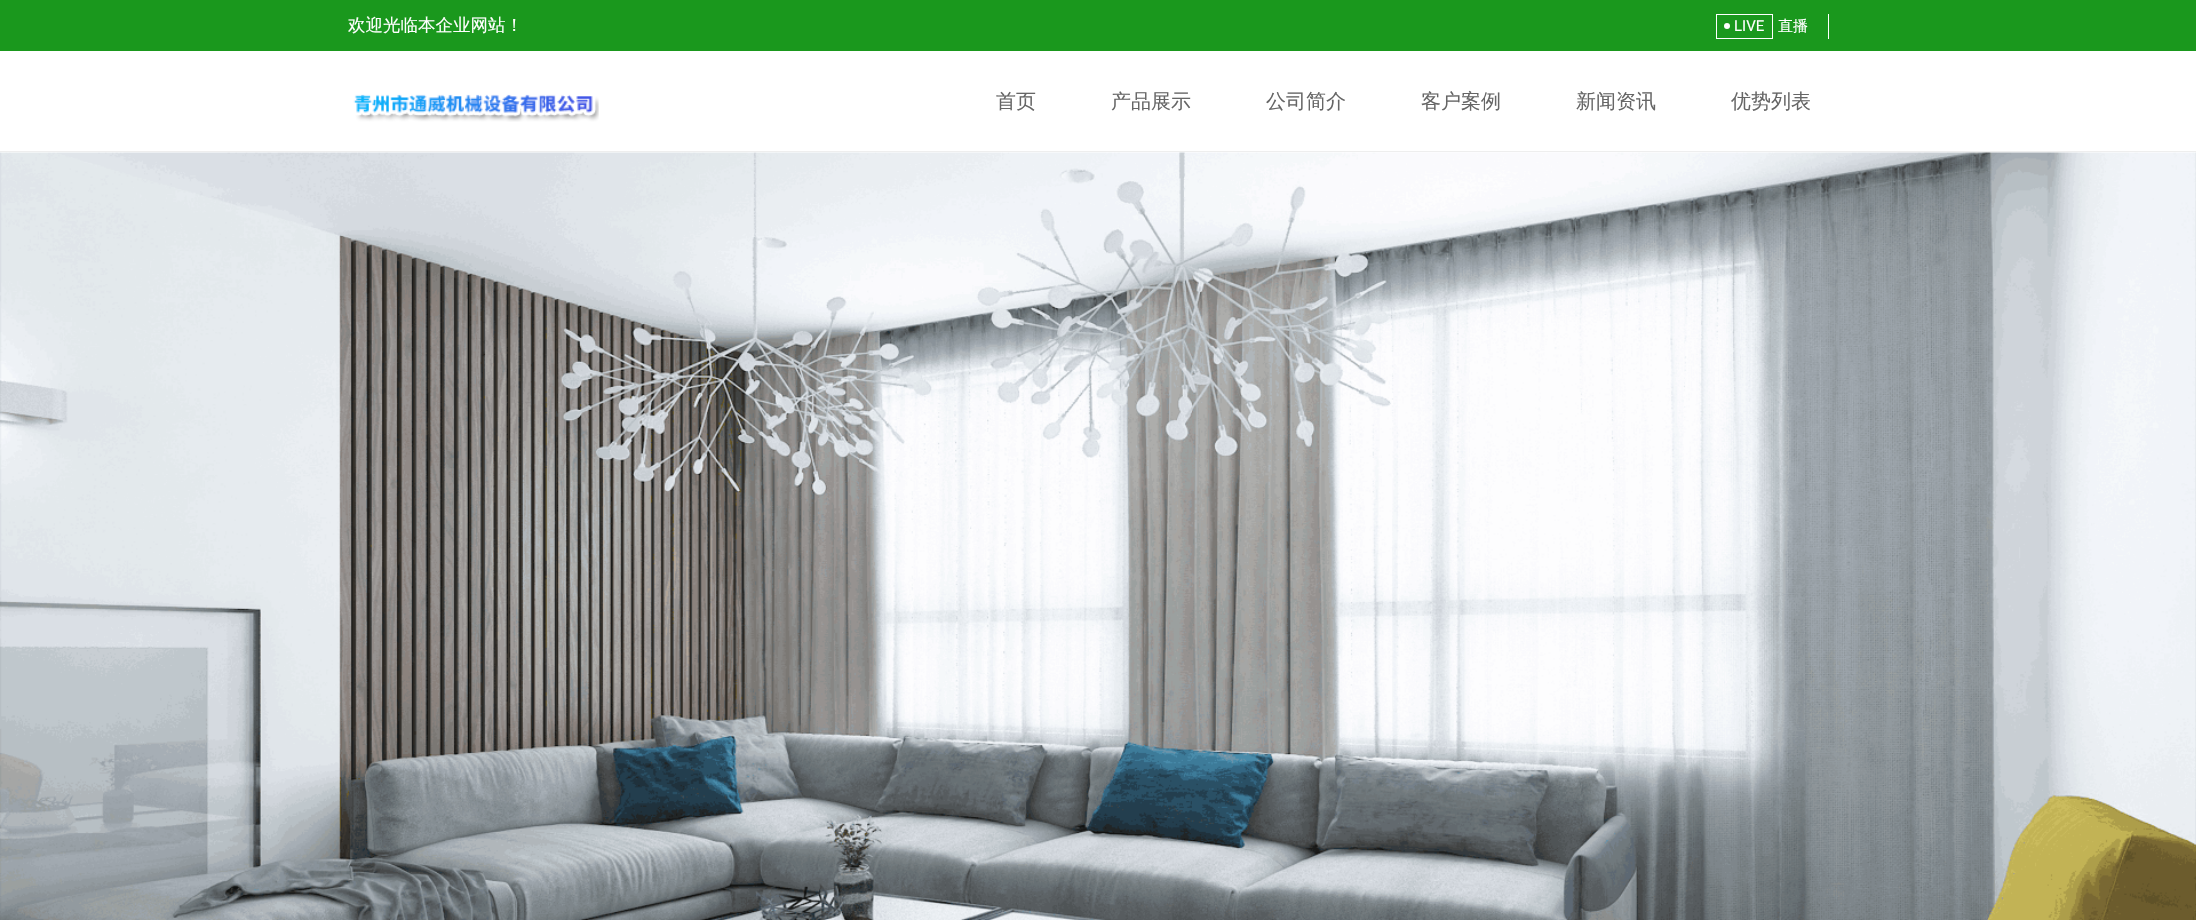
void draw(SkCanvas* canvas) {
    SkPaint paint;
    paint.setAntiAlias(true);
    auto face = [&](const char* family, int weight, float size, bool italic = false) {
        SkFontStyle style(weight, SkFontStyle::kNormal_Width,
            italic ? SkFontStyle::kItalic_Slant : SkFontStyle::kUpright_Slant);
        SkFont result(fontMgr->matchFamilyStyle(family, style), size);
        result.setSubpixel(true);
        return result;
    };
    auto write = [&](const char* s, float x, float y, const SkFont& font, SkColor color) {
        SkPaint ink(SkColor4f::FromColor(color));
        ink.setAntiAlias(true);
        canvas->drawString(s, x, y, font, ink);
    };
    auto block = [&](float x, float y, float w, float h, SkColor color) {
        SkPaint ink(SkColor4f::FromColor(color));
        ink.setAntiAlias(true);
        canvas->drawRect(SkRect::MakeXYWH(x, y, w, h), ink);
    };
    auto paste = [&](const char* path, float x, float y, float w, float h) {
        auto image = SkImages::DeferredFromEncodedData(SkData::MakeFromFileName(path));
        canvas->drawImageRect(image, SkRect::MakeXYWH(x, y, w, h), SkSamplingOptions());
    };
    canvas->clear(SK_ColorWHITE);
    block(0, 0, 2196, 51, SkColorSetRGB(26, 152, 29));
    auto kFont1 = face("WenQuanYi Zen Hei", 500, 17.5f);
    write("欢迎光临本企业网站！", 348, 31, kFont1, SK_ColorWHITE);
    block(1828, 14, 1, 25, SK_ColorWHITE);
    paint.setStyle(SkPaint::kStroke_Style);
    paint.setStrokeWidth(1);
    paint.setColor(SK_ColorWHITE);
    canvas->drawRect(SkRect::MakeXYWH(1716.5f, 14.5f, 56, 24), paint);
    paint.setStyle(SkPaint::kFill_Style);
    canvas->drawCircle(1727, 26, 3, paint);
    auto kFont2 = face("Roboto", 400, 15);
    write("LIVE", 1734, 31, kFont2, SK_ColorWHITE);
    auto kFont3 = face("WenQuanYi Zen Hei", 500, 15);
    write("直播", 1778, 31, kFont3, SK_ColorWHITE);
    block(0, 151, 2196, 1, SkColorSetRGB(238, 238, 238));
    paste("pic1.png", 353, 94, 246, 28);
    auto kFont4 = face("WenQuanYi Zen Hei", 500, 20);
    write("首页", 996, 108, kFont4, SkColorSetRGB(102, 102, 102));
    write("产品展示", 1111, 108, kFont4, SkColorSetRGB(102, 102, 102));
    write("公司简介", 1266, 108, kFont4, SkColorSetRGB(102, 102, 102));
    write("客户案例", 1421, 108, kFont4, SkColorSetRGB(102, 102, 102));
    write("新闻资讯", 1576, 108, kFont4, SkColorSetRGB(102, 102, 102));
    write("优势列表", 1731, 108, kFont4, SkColorSetRGB(102, 102, 102));
    paste("pic2.png", 0, 152, 2196, 768);
}
